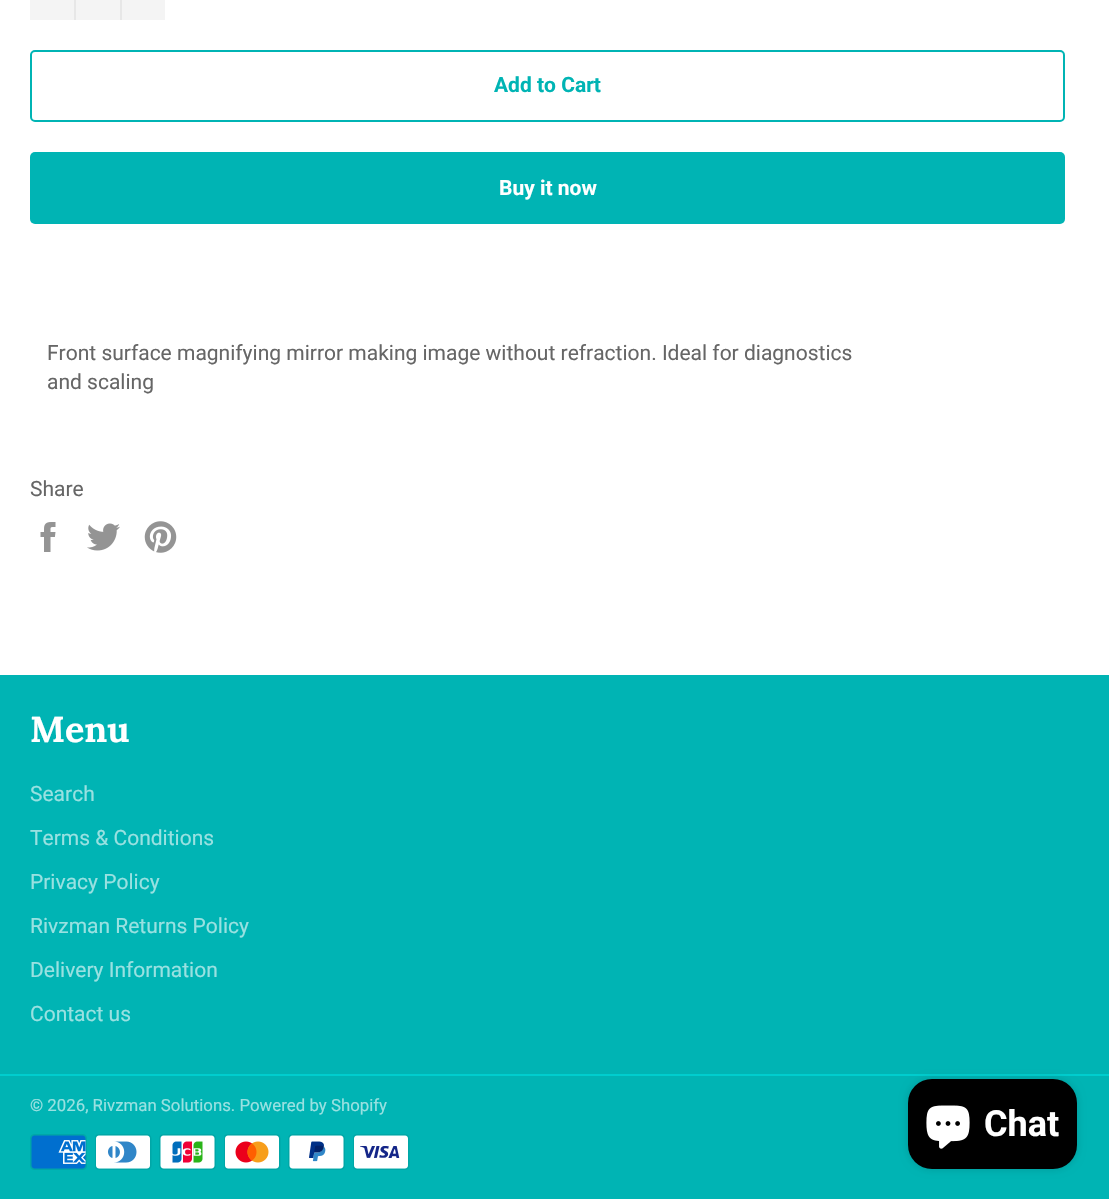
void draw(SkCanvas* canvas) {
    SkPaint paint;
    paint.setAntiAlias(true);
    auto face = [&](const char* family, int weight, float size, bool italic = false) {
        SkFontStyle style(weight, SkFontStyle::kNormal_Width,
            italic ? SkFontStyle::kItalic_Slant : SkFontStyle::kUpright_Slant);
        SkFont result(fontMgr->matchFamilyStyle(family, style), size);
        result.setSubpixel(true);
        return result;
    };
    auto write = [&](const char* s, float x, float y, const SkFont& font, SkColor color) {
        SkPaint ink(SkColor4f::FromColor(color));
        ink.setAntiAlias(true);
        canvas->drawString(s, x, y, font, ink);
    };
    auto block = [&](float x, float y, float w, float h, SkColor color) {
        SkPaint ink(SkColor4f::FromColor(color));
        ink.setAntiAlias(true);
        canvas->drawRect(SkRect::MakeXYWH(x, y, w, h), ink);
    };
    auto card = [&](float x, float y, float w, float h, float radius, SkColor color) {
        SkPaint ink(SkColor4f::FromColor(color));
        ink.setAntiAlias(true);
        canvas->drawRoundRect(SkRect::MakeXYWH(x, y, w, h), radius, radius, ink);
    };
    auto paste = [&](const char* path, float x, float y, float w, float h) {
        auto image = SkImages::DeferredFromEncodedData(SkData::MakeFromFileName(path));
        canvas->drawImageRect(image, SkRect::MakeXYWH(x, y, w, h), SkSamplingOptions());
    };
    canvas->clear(SK_ColorWHITE);
    block(30, 0, 135, 20, SkColorSetRGB(244, 244, 244));
    block(74, 0, 2, 20, SkColorSetRGB(231, 231, 231));
    block(120, 0, 2, 20, SkColorSetRGB(231, 231, 231));
    paint.setStyle(SkPaint::kStroke_Style);
    paint.setStrokeWidth(2);
    paint.setColor(SkColorSetRGB(0, 180, 180));
    canvas->drawRoundRect(SkRect::MakeXYWH(31, 51, 1033, 70), 4, 4, paint);
    auto kFont1 = face("Roboto", 700, 21);
    write("Add to Cart", 494, 92, kFont1, SkColorSetRGB(0, 180, 180));
    card(30, 152, 1035, 72, 5, SkColorSetRGB(0, 180, 180));
    write("Buy it now", 499, 195, kFont1, SK_ColorWHITE);
    auto kFont2 = face("Roboto", 400, 21);
    write("Front surface magnifying mirror making image without refraction. Ideal for diagnostics", 47, 360, kFont2, SkColorSetRGB(102, 102, 102));
    write("and scaling", 47, 389, kFont2, SkColorSetRGB(102, 102, 102));
    write("Share", 30, 496, kFont2, SkColorSetRGB(102, 102, 102));
    paste("pic1.png", 40, 522, 16, 30);
    paste("pic2.png", 87, 523, 33, 28);
    paste("pic3.png", 144, 521, 33, 32);
    block(0, 675, 1109, 524, SkColorSetRGB(0, 180, 180));
    auto kFont3 = face("Lora", 700, 36);
    write("Menu", 30, 742, kFont3, SK_ColorWHITE);
    write("Search", 30, 801, kFont2, SkColorSetRGB(153, 225, 225));
    write("Terms & Conditions", 30, 845, kFont2, SkColorSetRGB(153, 225, 225));
    write("Privacy Policy", 30, 889, kFont2, SkColorSetRGB(153, 225, 225));
    write("Rivzman Returns Policy", 30, 933, kFont2, SkColorSetRGB(153, 225, 225));
    write("Delivery Information", 30, 977, kFont2, SkColorSetRGB(153, 225, 225));
    write("Contact us", 30, 1021, kFont2, SkColorSetRGB(153, 225, 225));
    block(0, 1074, 1109, 2, SkColorSetRGB(0, 205, 206));
    auto kFont4 = face("Roboto", 400, 16.8f);
    write("© 2026, Rivzman Solutions. Powered by Shopify", 30, 1111, kFont4, SkColorSetRGB(153, 225, 225));
    paste("pic4.png", 30, 1134, 57, 36);
    paste("pic5.png", 95, 1134, 57, 36);
    paste("pic6.png", 159, 1134, 57, 36);
    paste("pic7.png", 224, 1134, 57, 36);
    paste("pic8.png", 288, 1134, 57, 36);
    paste("pic9.png", 353, 1134, 57, 36);
    paint.setStyle(SkPaint::kFill_Style);
    paint.setColor(SkColorSetARGB(38, 0, 0, 0));
    paint.setMaskFilter(SkMaskFilter::MakeBlur(kNormal_SkBlurStyle, 4));
    canvas->drawRoundRect(SkRect::MakeXYWH(908, 1079, 169, 90), 24, 24, paint);
    paint.setMaskFilter(nullptr);
    card(908, 1079, 169, 90, 24, SK_ColorBLACK);
    paste("pic10.png", 926, 1105, 44, 44);
    auto kFont5 = face("Roboto", 700, 36);
    write("Chat", 984, 1136, kFont5, SK_ColorWHITE);
}
